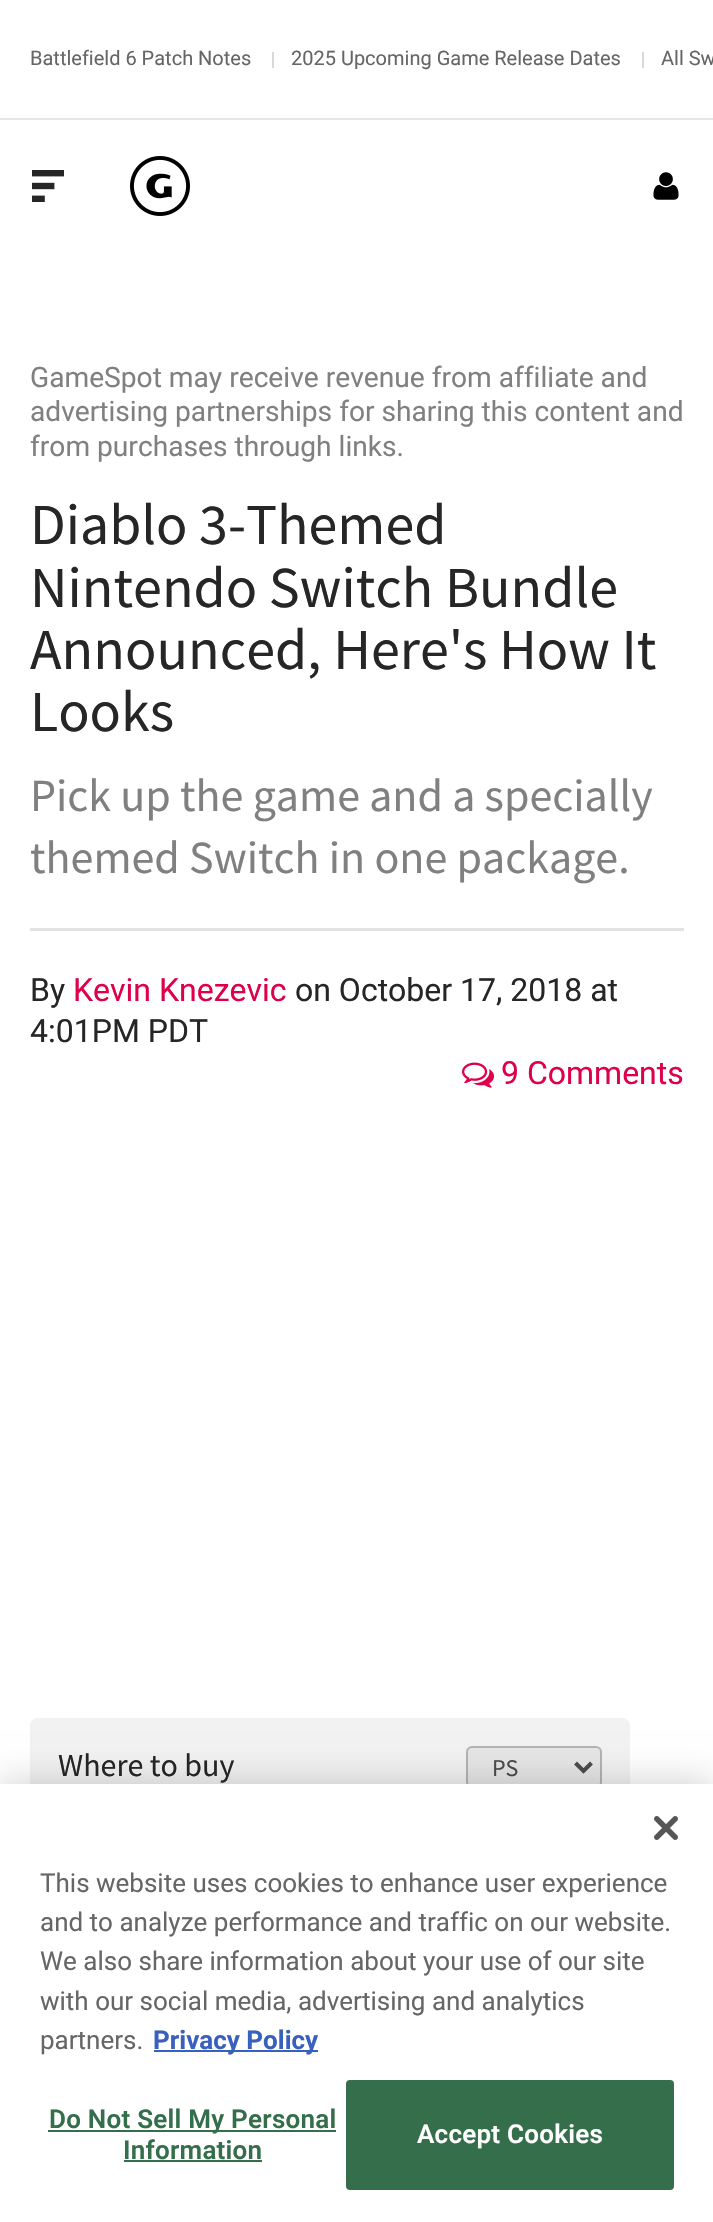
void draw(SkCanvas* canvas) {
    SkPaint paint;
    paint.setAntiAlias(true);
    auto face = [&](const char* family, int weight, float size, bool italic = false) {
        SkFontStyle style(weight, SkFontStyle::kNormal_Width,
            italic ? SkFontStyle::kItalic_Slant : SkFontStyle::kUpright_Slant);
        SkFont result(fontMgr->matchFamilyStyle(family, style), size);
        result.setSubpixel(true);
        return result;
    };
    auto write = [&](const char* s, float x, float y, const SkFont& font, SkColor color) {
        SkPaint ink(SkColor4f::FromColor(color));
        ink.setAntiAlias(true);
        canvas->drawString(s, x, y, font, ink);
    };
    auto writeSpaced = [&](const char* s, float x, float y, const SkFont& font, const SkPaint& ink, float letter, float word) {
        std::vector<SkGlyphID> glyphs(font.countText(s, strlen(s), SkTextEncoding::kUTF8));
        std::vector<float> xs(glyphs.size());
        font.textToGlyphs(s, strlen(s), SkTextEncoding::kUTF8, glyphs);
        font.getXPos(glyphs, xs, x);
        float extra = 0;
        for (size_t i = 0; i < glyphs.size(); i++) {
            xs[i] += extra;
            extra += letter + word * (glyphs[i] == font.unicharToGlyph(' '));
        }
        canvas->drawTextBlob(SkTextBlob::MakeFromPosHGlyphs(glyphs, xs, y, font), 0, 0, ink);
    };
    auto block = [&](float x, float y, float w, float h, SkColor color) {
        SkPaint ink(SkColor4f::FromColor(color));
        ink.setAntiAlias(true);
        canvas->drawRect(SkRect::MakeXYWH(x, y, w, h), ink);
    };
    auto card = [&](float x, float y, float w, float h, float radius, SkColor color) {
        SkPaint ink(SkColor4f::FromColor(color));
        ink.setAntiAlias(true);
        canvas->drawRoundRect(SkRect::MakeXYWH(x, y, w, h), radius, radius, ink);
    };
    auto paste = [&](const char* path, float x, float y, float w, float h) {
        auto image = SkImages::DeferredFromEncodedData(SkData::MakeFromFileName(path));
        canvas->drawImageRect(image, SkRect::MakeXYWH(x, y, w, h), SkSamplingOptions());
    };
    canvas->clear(SK_ColorWHITE);
    block(0, 118, 713, 2, SkColorSetRGB(230, 230, 230));
    auto kFont1 = face("Roboto", 400, 20);
    write("Battlefield 6 Patch Notes", 30, 65, kFont1, SkColorSetRGB(102, 102, 102));
    block(272, 52, 2, 16, SkColorSetRGB(216, 216, 216));
    write("2025 Upcoming Game Release Dates", 291, 65, kFont1, SkColorSetRGB(102, 102, 102));
    block(642, 52, 2, 16, SkColorSetRGB(216, 216, 216));
    write("All Sw", 661, 65, kFont1, SkColorSetRGB(102, 102, 102));
    paste("pic1.png", 32, 170, 32, 32);
    paste("pic2.png", 130, 156, 60, 60);
    paste("pic3.png", 653, 172, 26, 28);
    auto kFont2 = face("Roboto", 400, 28.15f);
    write("GameSpot may receive revenue from affiliate and", 30, 387, kFont2, SkColorSetRGB(128, 128, 128));
    write("advertising partnerships for sharing this content and", 30, 421, kFont2, SkColorSetRGB(128, 128, 128));
    write("from purchases through links.", 30, 456, kFont2, SkColorSetRGB(128, 128, 128));
    auto kFont3 = face("Source Sans Pro", 400, 58);
    write("Diablo 3-Themed", 30, 544, kFont3, SkColorSetRGB(38, 38, 38));
    write("Nintendo Switch Bundle", 30, 607, kFont3, SkColorSetRGB(38, 38, 38));
    write("Announced, Here's How It", 30, 669, kFont3, SkColorSetRGB(38, 38, 38));
    write("Looks", 30, 731, kFont3, SkColorSetRGB(38, 38, 38));
    auto kFont4 = face("Source Sans Pro", 400, 46);
    write("Pick up the game and a specially", 30, 811, kFont4, SkColorSetRGB(128, 128, 128));
    write("themed Switch in one package.", 30, 873, kFont4, SkColorSetRGB(128, 128, 128));
    block(30, 928, 654, 3, SkColorSetRGB(227, 227, 227));
    auto kFont5 = face("Roboto", 400, 32);
    write("By", 30, 1001, kFont5, SkColorSetRGB(38, 38, 38));
    write("Kevin Knezevic", 73, 1001, kFont5, SkColorSetRGB(222, 0, 74));
    write("on October 17, 2018 at", 295, 1001, kFont5, SkColorSetRGB(38, 38, 38));
    write("4:01PM PDT", 30, 1042, kFont5, SkColorSetRGB(38, 38, 38));
    paste("pic4.png", 462, 1062, 32, 26);
    write("9 Comments", 501, 1084, kFont5, SkColorSetRGB(222, 0, 74));
    card(30, 1718, 600, 274, 8, SkColorSetRGB(242, 242, 242));
    auto kFont6 = face("Source Sans Pro", 400, 32);
    write("Where to buy", 58, 1776, kFont6, SkColorSetRGB(38, 38, 38));
    paint.setColor(SkColorSetRGB(230, 230, 230));
    canvas->drawRoundRect(SkRect::MakeXYWH(467, 1747, 134, 40), 5, 5, paint);
    paint.setStyle(SkPaint::kStroke_Style);
    paint.setStrokeWidth(2);
    paint.setColor(SkColorSetRGB(179, 179, 179));
    canvas->drawRoundRect(SkRect::MakeXYWH(467, 1747, 134, 40), 5, 5, paint);
    paint.setStrokeWidth(4);
    paint.setColor(SkColorSetRGB(76, 76, 76));
    canvas->drawPath(SkPathBuilder().moveTo(575.5f, 1763).lineTo(583.5f, 1771).lineTo(591.5f, 1763).detach(), paint);
    auto kFont7 = face("Source Sans Pro", 400, 24);
    write("PS", 492, 1776, kFont7, SkColorSetRGB(76, 76, 76));
    paint.setStyle(SkPaint::kFill_Style);
    paint.setColor(SkColorSetARGB(51, 0, 0, 0));
    paint.setMaskFilter(SkMaskFilter::MakeBlur(kNormal_SkBlurStyle, 18));
    canvas->drawRect(SkRect::MakeXYWH(0, 1784, 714, 438), paint);
    paint.setMaskFilter(nullptr);
    block(0, 1784, 713, 438, SK_ColorWHITE);
    paste("pic5.png", 654, 1816, 24, 24);
    auto kFont8 = face("Roboto", 400, 26);
    write("This website uses cookies to enhance user experience", 40, 1892, kFont8, SkColorSetRGB(102, 102, 102));
    write("and to analyze performance and traffic on our website.", 40, 1931, kFont8, SkColorSetRGB(102, 102, 102));
    write("We also share information about your use of our site", 40, 1970, kFont8, SkColorSetRGB(102, 102, 102));
    write("with our social media, advertising and analytics", 40, 2010, kFont8, SkColorSetRGB(102, 102, 102));
    write("partners.", 40, 2049, kFont8, SkColorSetRGB(102, 102, 102));
    block(154, 2050, 164, 2, SkColorSetRGB(56, 96, 190));
    auto kFont9 = face("Roboto", 700, 26);
    write("Privacy Policy", 153, 2049, kFont9, SkColorSetRGB(56, 96, 190));
    block(48, 2130, 288, 2, SkColorSetRGB(52, 110, 74));
    auto kFont10 = face("Roboto", 600, 26);
    paint.setColor(SkColorSetRGB(52, 110, 74));
    writeSpaced("Do Not Sell My Personal", 49, 2128, kFont10, paint, 0.25f, 0);
    writeSpaced("Information", 123, 2159, kFont10, paint, 0.25f, 0);
    block(124, 2160, 138, 2, SkColorSetRGB(52, 110, 74));
    canvas->drawRoundRect(SkRect::MakeXYWH(347, 2081, 326, 108), 3, 3, paint);
    paint.setStyle(SkPaint::kStroke_Style);
    paint.setStrokeWidth(2);
    canvas->drawRoundRect(SkRect::MakeXYWH(347, 2081, 326, 108), 3, 3, paint);
    paint.setStyle(SkPaint::kFill_Style);
    paint.setColor(SK_ColorWHITE);
    writeSpaced("Accept Cookies", 417, 2143, kFont10, paint, 0.25f, 0);
}
